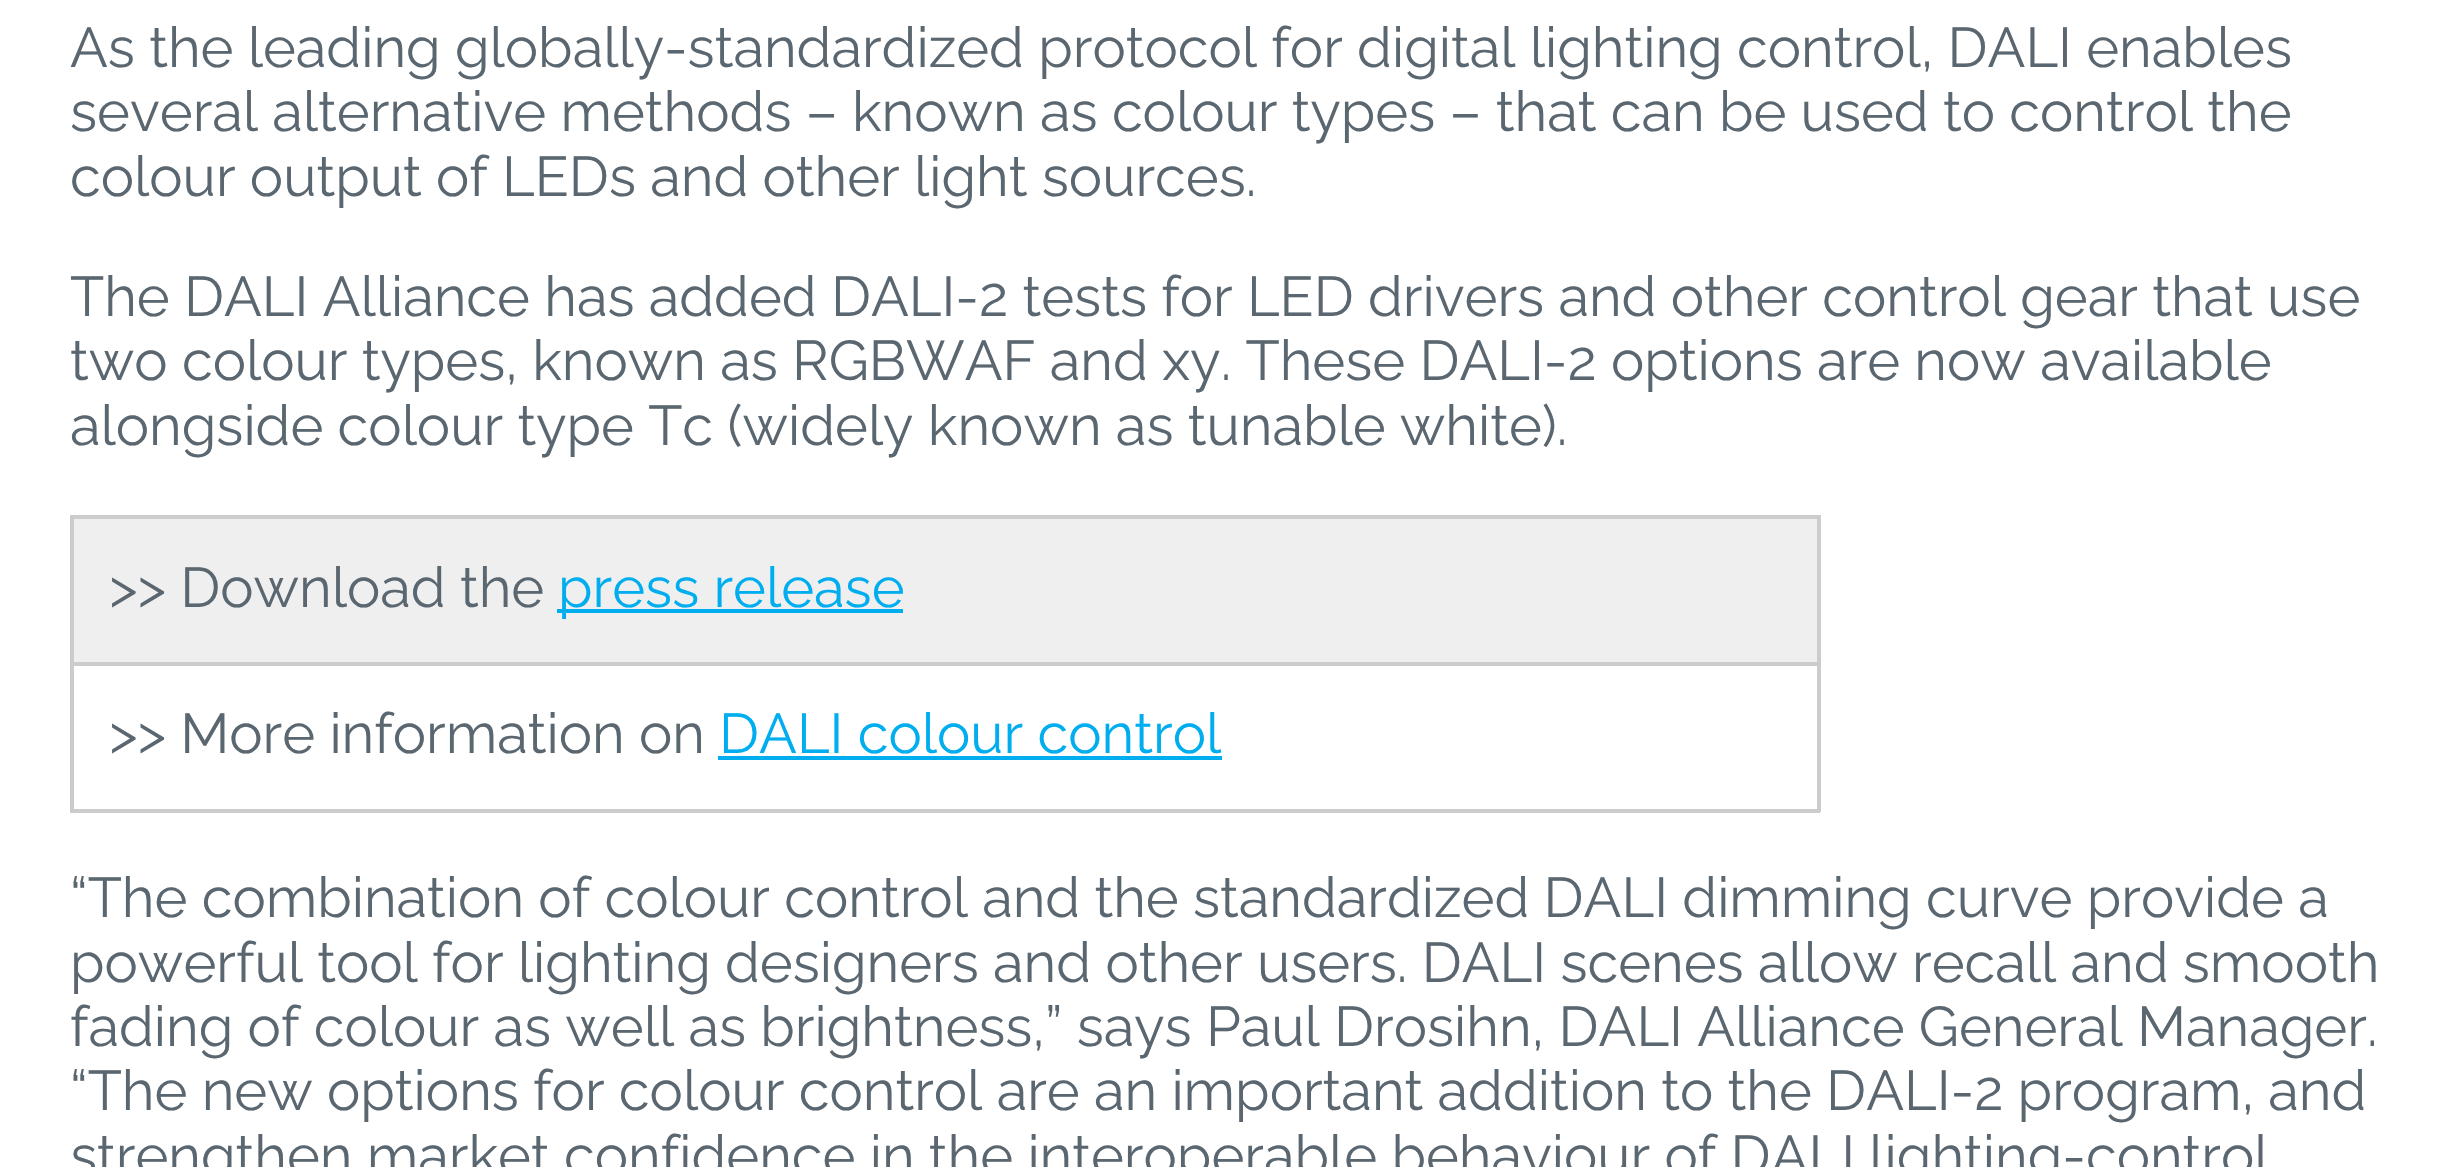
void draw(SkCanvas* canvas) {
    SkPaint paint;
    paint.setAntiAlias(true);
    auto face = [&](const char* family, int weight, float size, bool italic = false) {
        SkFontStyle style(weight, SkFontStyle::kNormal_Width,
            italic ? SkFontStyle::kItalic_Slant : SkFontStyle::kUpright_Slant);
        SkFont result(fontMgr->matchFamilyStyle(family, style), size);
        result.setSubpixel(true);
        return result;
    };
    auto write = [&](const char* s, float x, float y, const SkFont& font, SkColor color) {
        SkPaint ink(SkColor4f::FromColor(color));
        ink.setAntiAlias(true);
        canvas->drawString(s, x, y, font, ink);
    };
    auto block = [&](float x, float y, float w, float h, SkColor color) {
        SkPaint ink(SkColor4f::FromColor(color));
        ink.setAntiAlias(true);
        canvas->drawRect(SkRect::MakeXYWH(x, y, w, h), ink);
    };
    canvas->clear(SK_ColorWHITE);
    auto kFont1 = face("Raleway", 400, 56);
    write("As the leading globally-standardized protocol for digital lighting control, DALI enables", 70, 67, kFont1, SkColorSetRGB(91, 103, 112));
    write("several alternative methods – known as colour types – that can be used to control the", 70, 131, kFont1, SkColorSetRGB(91, 103, 112));
    write("colour output of LEDs and other light sources.", 70, 196, kFont1, SkColorSetRGB(91, 103, 112));
    write("The DALI Alliance has added DALI-2 tests for LED drivers and other control gear that use", 70, 316, kFont1, SkColorSetRGB(91, 103, 112));
    write("two colour types, known as RGBWAF and xy. These DALI-2 options are now available", 70, 380, kFont1, SkColorSetRGB(91, 103, 112));
    write("alongside colour type Tc (widely known as tunable white).", 70, 445, kFont1, SkColorSetRGB(91, 103, 112));
    block(74, 519, 1743, 143, SkColorSetRGB(239, 239, 239));
    block(70, 515, 1750, 4, SkColorSetRGB(204, 204, 204));
    block(70, 662, 1750, 4, SkColorSetRGB(204, 204, 204));
    block(1817, 662, 4, 150, SkColorSetRGB(204, 204, 204));
    block(1817, 515, 4, 150, SkColorSetRGB(204, 204, 204));
    block(70, 809, 1750, 4, SkColorSetRGB(204, 204, 204));
    block(70, 662, 4, 150, SkColorSetRGB(204, 204, 204));
    block(70, 515, 4, 150, SkColorSetRGB(204, 204, 204));
    write(">> Download the", 109, 607, kFont1, SkColorSetRGB(91, 103, 112));
    block(557, 609, 346, 4, SkColorSetRGB(0, 173, 238));
    write("press release", 558, 607, kFont1, SkColorSetRGB(0, 173, 238));
    write(">> More information on", 109, 753, kFont1, SkColorSetRGB(91, 103, 112));
    write("DALI colour control", 719, 753, kFont1, SkColorSetRGB(0, 173, 238));
    block(718, 756, 504, 4, SkColorSetRGB(0, 173, 238));
    write("“The combination of colour control and the standardized DALI dimming curve provide a", 70, 917, kFont1, SkColorSetRGB(91, 103, 112));
    write("powerful tool for lighting designers and other users. DALI scenes allow recall and smooth", 70, 982, kFont1, SkColorSetRGB(91, 103, 112));
    write("fading of colour as well as brightness,” says Paul Drosihn, DALI Alliance General Manager.", 70, 1046, kFont1, SkColorSetRGB(91, 103, 112));
    write("“The new options for colour control are an important addition to the DALI-2 program, and", 70, 1110, kFont1, SkColorSetRGB(91, 103, 112));
    write("strengthen market confidence in the interoperable behaviour of DALI lighting-control", 70, 1175, kFont1, SkColorSetRGB(91, 103, 112));
}
